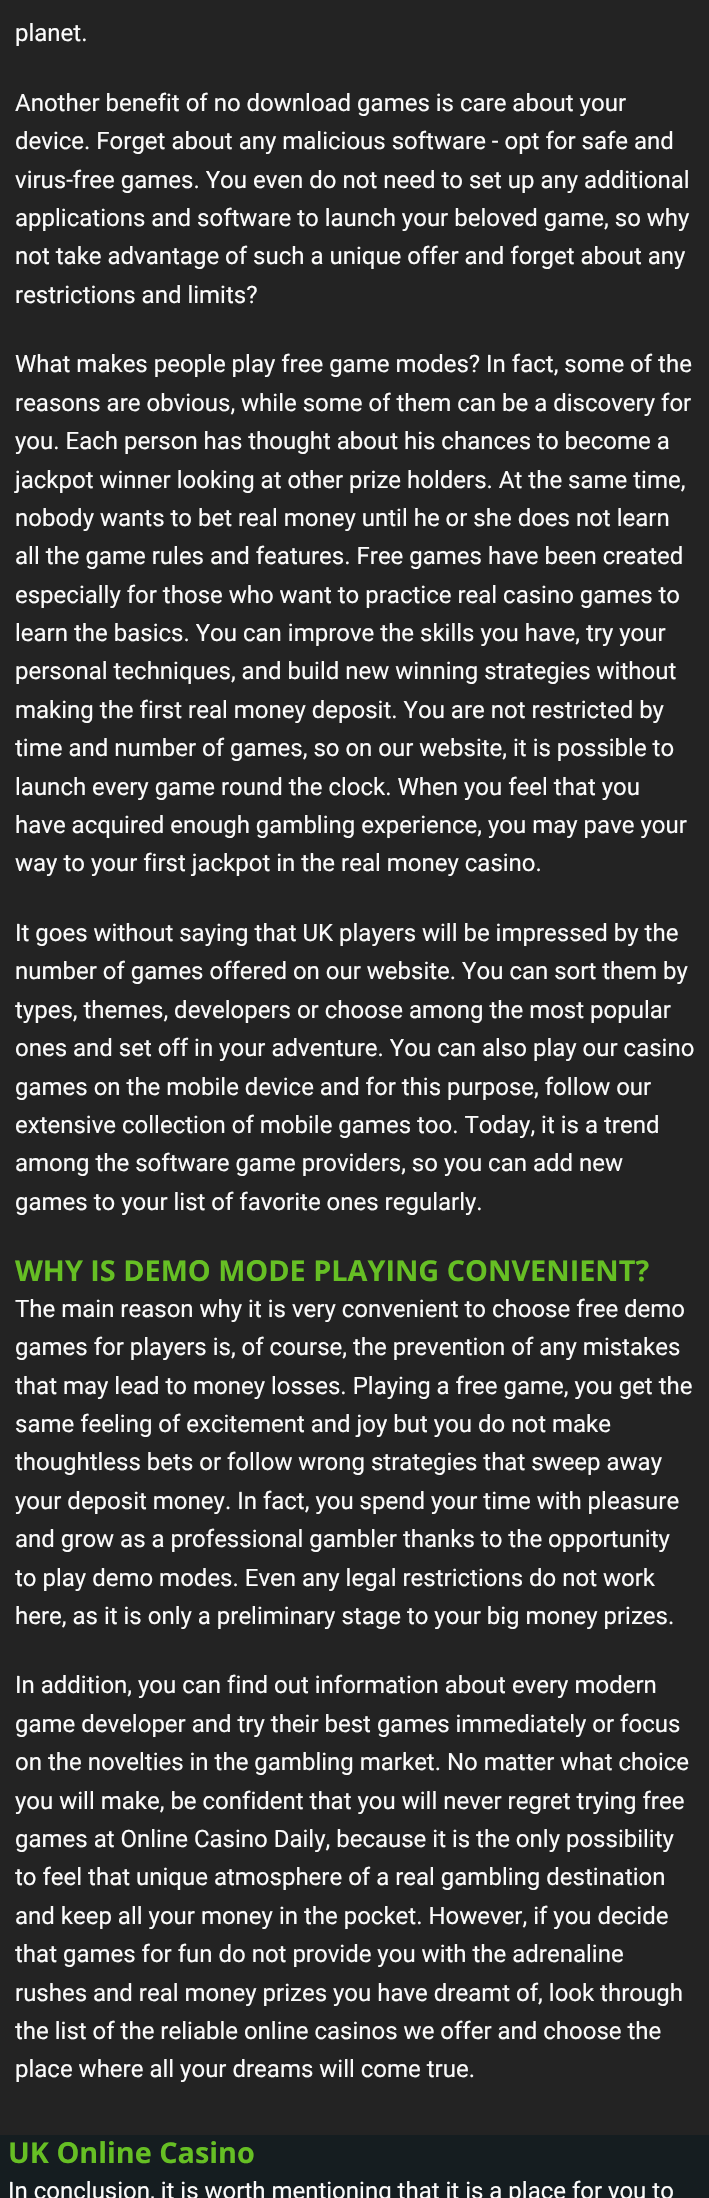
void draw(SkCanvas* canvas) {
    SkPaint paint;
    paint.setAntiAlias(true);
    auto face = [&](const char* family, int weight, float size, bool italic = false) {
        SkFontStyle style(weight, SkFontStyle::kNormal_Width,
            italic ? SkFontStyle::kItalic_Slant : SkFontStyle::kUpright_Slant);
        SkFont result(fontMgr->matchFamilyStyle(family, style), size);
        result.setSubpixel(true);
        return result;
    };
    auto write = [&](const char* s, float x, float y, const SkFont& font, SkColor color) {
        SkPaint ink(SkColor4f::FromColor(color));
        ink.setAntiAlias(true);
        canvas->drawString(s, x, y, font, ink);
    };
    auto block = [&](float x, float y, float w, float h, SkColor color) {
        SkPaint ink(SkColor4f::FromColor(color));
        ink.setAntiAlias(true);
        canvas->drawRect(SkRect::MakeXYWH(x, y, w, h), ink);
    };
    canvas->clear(SkColorSetRGB(35, 35, 35));
    auto kFont1 = face("Roboto", 400, 24);
    write("planet.", 15, 41, kFont1, SkColorSetRGB(252, 252, 252));
    write("Another benefit of no download games is care about your", 15, 111, kFont1, SkColorSetRGB(252, 252, 252));
    write("device. Forget about any malicious software - opt for safe and", 15, 149, kFont1, SkColorSetRGB(252, 252, 252));
    write("virus-free games. You even do not need to set up any additional", 15, 188, kFont1, SkColorSetRGB(252, 252, 252));
    write("applications and software to launch your beloved game, so why", 15, 226, kFont1, SkColorSetRGB(252, 252, 252));
    write("not take advantage of such a unique offer and forget about any", 15, 264, kFont1, SkColorSetRGB(252, 252, 252));
    write("restrictions and limits?", 15, 303, kFont1, SkColorSetRGB(252, 252, 252));
    write("What makes people play free game modes? In fact, some of the", 15, 372, kFont1, SkColorSetRGB(252, 252, 252));
    write("reasons are obvious, while some of them can be a discovery for", 15, 411, kFont1, SkColorSetRGB(252, 252, 252));
    write("you. Each person has thought about his chances to become a", 15, 449, kFont1, SkColorSetRGB(252, 252, 252));
    write("jackpot winner looking at other prize holders. At the same time,", 15, 488, kFont1, SkColorSetRGB(252, 252, 252));
    write("nobody wants to bet real money until he or she does not learn", 15, 526, kFont1, SkColorSetRGB(252, 252, 252));
    write("all the game rules and features. Free games have been created", 15, 564, kFont1, SkColorSetRGB(252, 252, 252));
    write("especially for those who want to practice real casino games to", 15, 603, kFont1, SkColorSetRGB(252, 252, 252));
    write("learn the basics. You can improve the skills you have, try your", 15, 641, kFont1, SkColorSetRGB(252, 252, 252));
    write("personal techniques, and build new winning strategies without", 15, 679, kFont1, SkColorSetRGB(252, 252, 252));
    write("making the first real money deposit. You are not restricted by", 15, 718, kFont1, SkColorSetRGB(252, 252, 252));
    write("time and number of games, so on our website, it is possible to", 15, 756, kFont1, SkColorSetRGB(252, 252, 252));
    write("launch every game round the clock. When you feel that you", 15, 795, kFont1, SkColorSetRGB(252, 252, 252));
    write("have acquired enough gambling experience, you may pave your", 15, 833, kFont1, SkColorSetRGB(252, 252, 252));
    write("way to your first jackpot in the real money casino.", 15, 871, kFont1, SkColorSetRGB(252, 252, 252));
    write("It goes without saying that UK players will be impressed by the", 15, 941, kFont1, SkColorSetRGB(252, 252, 252));
    write("number of games offered on our website. You can sort them by", 15, 979, kFont1, SkColorSetRGB(252, 252, 252));
    write("types, themes, developers or choose among the most popular", 15, 1018, kFont1, SkColorSetRGB(252, 252, 252));
    write("ones and set off in your adventure. You can also play our casino", 15, 1056, kFont1, SkColorSetRGB(252, 252, 252));
    write("games on the mobile device and for this purpose, follow our", 15, 1095, kFont1, SkColorSetRGB(252, 252, 252));
    write("extensive collection of mobile games too. Today, it is a trend", 15, 1133, kFont1, SkColorSetRGB(252, 252, 252));
    write("among the software game providers, so you can add new", 15, 1171, kFont1, SkColorSetRGB(252, 252, 252));
    write("games to your list of favorite ones regularly.", 15, 1210, kFont1, SkColorSetRGB(252, 252, 252));
    auto kFont2 = face("Open Sans", 700, 28.8f);
    write("WHY IS DEMO MODE PLAYING CONVENIENT?", 15, 1281, kFont2, SkColorSetRGB(102, 191, 36));
    write("The main reason why it is very convenient to choose free demo", 15, 1317, kFont1, SkColorSetRGB(252, 252, 252));
    write("games for players is, of course, the prevention of any mistakes", 15, 1355, kFont1, SkColorSetRGB(252, 252, 252));
    write("that may lead to money losses. Playing a free game, you get the", 15, 1394, kFont1, SkColorSetRGB(252, 252, 252));
    write("same feeling of excitement and joy but you do not make", 15, 1432, kFont1, SkColorSetRGB(252, 252, 252));
    write("thoughtless bets or follow wrong strategies that sweep away", 15, 1470, kFont1, SkColorSetRGB(252, 252, 252));
    write("your deposit money. In fact, you spend your time with pleasure", 15, 1509, kFont1, SkColorSetRGB(252, 252, 252));
    write("and grow as a professional gambler thanks to the opportunity", 15, 1547, kFont1, SkColorSetRGB(252, 252, 252));
    write("to play demo modes. Even any legal restrictions do not work", 15, 1586, kFont1, SkColorSetRGB(252, 252, 252));
    write("here, as it is only a preliminary stage to your big money prizes.", 15, 1624, kFont1, SkColorSetRGB(252, 252, 252));
    write("In addition, you can find out information about every modern", 15, 1693, kFont1, SkColorSetRGB(252, 252, 252));
    write("game developer and try their best games immediately or focus", 15, 1732, kFont1, SkColorSetRGB(252, 252, 252));
    write("on the novelties in the gambling market. No matter what choice", 15, 1770, kFont1, SkColorSetRGB(252, 252, 252));
    write("you will make, be confident that you will never regret trying free", 15, 1809, kFont1, SkColorSetRGB(252, 252, 252));
    write("games at Online Casino Daily, because it is the only possibility", 15, 1847, kFont1, SkColorSetRGB(252, 252, 252));
    write("to feel that unique atmosphere of a real gambling destination", 15, 1885, kFont1, SkColorSetRGB(252, 252, 252));
    write("and keep all your money in the pocket. However, if you decide", 15, 1924, kFont1, SkColorSetRGB(252, 252, 252));
    write("that games for fun do not provide you with the adrenaline", 15, 1962, kFont1, SkColorSetRGB(252, 252, 252));
    write("rushes and real money prizes you have dreamt of, look through", 15, 2001, kFont1, SkColorSetRGB(252, 252, 252));
    write("the list of the reliable online casinos we offer and choose the", 15, 2039, kFont1, SkColorSetRGB(252, 252, 252));
    write("place where all your dreams will come true.", 15, 2077, kFont1, SkColorSetRGB(252, 252, 252));
    block(0, 2135, 709, 63, SkColorSetRGB(21, 29, 32));
    write("UK Online Casino", 8, 2163, kFont2, SkColorSetRGB(102, 191, 36));
    write("In conclusion, it is worth mentioning that it is a place for you to", 8, 2199, kFont1, SkColorSetRGB(252, 252, 252));
}
